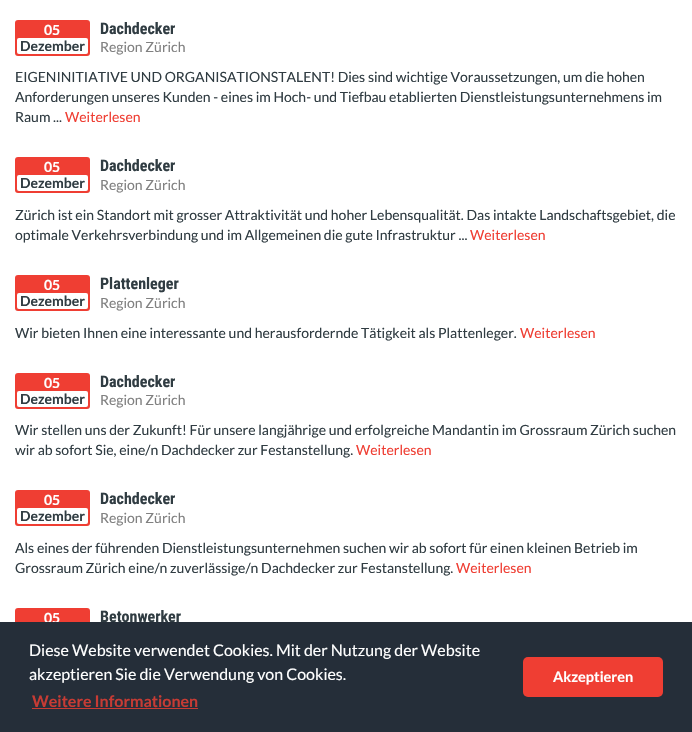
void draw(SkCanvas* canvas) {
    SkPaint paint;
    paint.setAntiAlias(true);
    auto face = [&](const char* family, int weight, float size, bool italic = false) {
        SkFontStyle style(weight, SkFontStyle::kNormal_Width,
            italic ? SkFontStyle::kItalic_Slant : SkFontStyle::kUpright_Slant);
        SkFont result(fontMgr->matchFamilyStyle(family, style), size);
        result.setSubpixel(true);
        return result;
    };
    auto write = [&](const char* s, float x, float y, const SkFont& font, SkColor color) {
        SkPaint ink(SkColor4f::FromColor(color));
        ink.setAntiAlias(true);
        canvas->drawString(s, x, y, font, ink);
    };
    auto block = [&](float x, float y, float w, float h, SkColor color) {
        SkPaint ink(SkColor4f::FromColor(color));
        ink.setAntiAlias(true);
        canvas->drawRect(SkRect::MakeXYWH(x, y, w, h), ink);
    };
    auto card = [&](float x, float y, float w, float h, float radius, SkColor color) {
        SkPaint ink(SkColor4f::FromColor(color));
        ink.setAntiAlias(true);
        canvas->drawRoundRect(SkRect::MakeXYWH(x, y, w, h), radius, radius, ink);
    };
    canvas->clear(SK_ColorWHITE);
    card(15, 20, 75, 36, 3, SkColorSetRGB(239, 62, 51));
    auto kFont1 = face("Lato", 700, 14);
    write("05", 44, 35, kFont1, SK_ColorWHITE);
    card(17, 38, 71, 16, 2, SK_ColorWHITE);
    write("Dezember", 20, 51, kFont1, SkColorSetRGB(48, 60, 66));
    auto kFont2 = face("Roboto Condensed", 700, 16);
    write("Dachdecker", 100, 34, kFont2, SkColorSetRGB(48, 60, 66));
    auto kFont3 = face("Lato", 400, 14);
    write("Region Zürich", 100, 52, kFont3, SkColorSetRGB(128, 128, 128));
    write("EIGENINITIATIVE UND ORGANISATIONSTALENT! Dies sind wichtige Voraussetzungen, um die hohen", 15, 82, kFont3, SkColorSetRGB(48, 60, 66));
    write("Anforderungen unseres Kunden - eines im Hoch- und Tiefbau etablierten Dienstleistungsunternehmens im", 15, 102, kFont3, SkColorSetRGB(48, 60, 66));
    write("Raum ...", 15, 122, kFont3, SkColorSetRGB(48, 60, 66));
    write("Weiterlesen", 65, 122, kFont3, SkColorSetRGB(239, 62, 51));
    card(15, 157, 75, 36, 3, SkColorSetRGB(239, 62, 51));
    write("05", 44, 172, kFont1, SK_ColorWHITE);
    card(17, 175, 71, 16, 2, SK_ColorWHITE);
    write("Dezember", 20, 188, kFont1, SkColorSetRGB(48, 60, 66));
    write("Dachdecker", 100, 171, kFont2, SkColorSetRGB(48, 60, 66));
    write("Region Zürich", 100, 190, kFont3, SkColorSetRGB(128, 128, 128));
    write("Zürich ist ein Standort mit grosser Attraktivität und hoher Lebensqualität. Das intakte Landschaftsgebiet, die", 15, 220, kFont3, SkColorSetRGB(48, 60, 66));
    write("optimale Verkehrsverbindung und im Allgemeinen die gute Infrastruktur ...", 15, 240, kFont3, SkColorSetRGB(48, 60, 66));
    write("Weiterlesen", 470, 240, kFont3, SkColorSetRGB(239, 62, 51));
    card(15, 275, 75, 36, 3, SkColorSetRGB(239, 62, 51));
    write("05", 44, 290, kFont1, SK_ColorWHITE);
    card(17, 293, 71, 16, 2, SK_ColorWHITE);
    write("Dezember", 20, 306, kFont1, SkColorSetRGB(48, 60, 66));
    write("Plattenleger", 100, 289, kFont2, SkColorSetRGB(48, 60, 66));
    write("Region Zürich", 100, 308, kFont3, SkColorSetRGB(128, 128, 128));
    write("Wir bieten Ihnen eine interessante und herausfordernde Tätigkeit als Plattenleger.", 15, 338, kFont3, SkColorSetRGB(48, 60, 66));
    write("Weiterlesen", 520, 338, kFont3, SkColorSetRGB(239, 62, 51));
    card(15, 373, 75, 36, 3, SkColorSetRGB(239, 62, 51));
    write("05", 44, 388, kFont1, SK_ColorWHITE);
    card(17, 391, 71, 16, 2, SK_ColorWHITE);
    write("Dezember", 20, 404, kFont1, SkColorSetRGB(48, 60, 66));
    write("Dachdecker", 100, 387, kFont2, SkColorSetRGB(48, 60, 66));
    write("Region Zürich", 100, 405, kFont3, SkColorSetRGB(128, 128, 128));
    write("Wir stellen uns der Zukunft! Für unsere langjährige und erfolgreiche Mandantin im Grossraum Zürich suchen", 15, 435, kFont3, SkColorSetRGB(48, 60, 66));
    write("wir ab sofort Sie, eine/n Dachdecker zur Festanstellung.", 15, 455, kFont3, SkColorSetRGB(48, 60, 66));
    write("Weiterlesen", 356, 455, kFont3, SkColorSetRGB(239, 62, 51));
    card(15, 490, 75, 36, 3, SkColorSetRGB(239, 62, 51));
    write("05", 44, 505, kFont1, SK_ColorWHITE);
    card(17, 508, 71, 16, 2, SK_ColorWHITE);
    write("Dezember", 20, 521, kFont1, SkColorSetRGB(48, 60, 66));
    write("Dachdecker", 100, 504, kFont2, SkColorSetRGB(48, 60, 66));
    write("Region Zürich", 100, 523, kFont3, SkColorSetRGB(128, 128, 128));
    write("Als eines der führenden Dienstleistungsunternehmen suchen wir ab sofort für einen kleinen Betrieb im", 15, 553, kFont3, SkColorSetRGB(48, 60, 66));
    write("Grossraum Zürich eine/n zuverlässige/n Dachdecker zur Festanstellung.", 15, 573, kFont3, SkColorSetRGB(48, 60, 66));
    write("Weiterlesen", 456, 573, kFont3, SkColorSetRGB(239, 62, 51));
    card(15, 608, 75, 36, 3, SkColorSetRGB(239, 62, 51));
    write("05", 44, 623, kFont1, SK_ColorWHITE);
    write("Betonwerker", 100, 622, kFont2, SkColorSetRGB(48, 60, 66));
    block(0, 622, 692, 110, SkColorSetRGB(37, 46, 57));
    auto kFont4 = face("Lato", 400, 16);
    write("Diese Website verwendet Cookies. Mit der Nutzung der Website", 29, 656, kFont4, SK_ColorWHITE);
    write("akzeptieren Sie die Verwendung von Cookies.", 29, 680, kFont4, SK_ColorWHITE);
    auto kFont5 = face("Lato", 700, 16);
    write("Weitere Informationen", 32, 707, kFont5, SkColorSetRGB(199, 59, 52));
    block(32, 708, 166, 1, SkColorSetRGB(199, 59, 52));
    card(523, 657, 140, 40, 5, SkColorSetRGB(239, 62, 51));
    auto kFont6 = face("Lato", 700, 14.5f);
    write("Akzeptieren", 553, 682, kFont6, SK_ColorWHITE);
}
